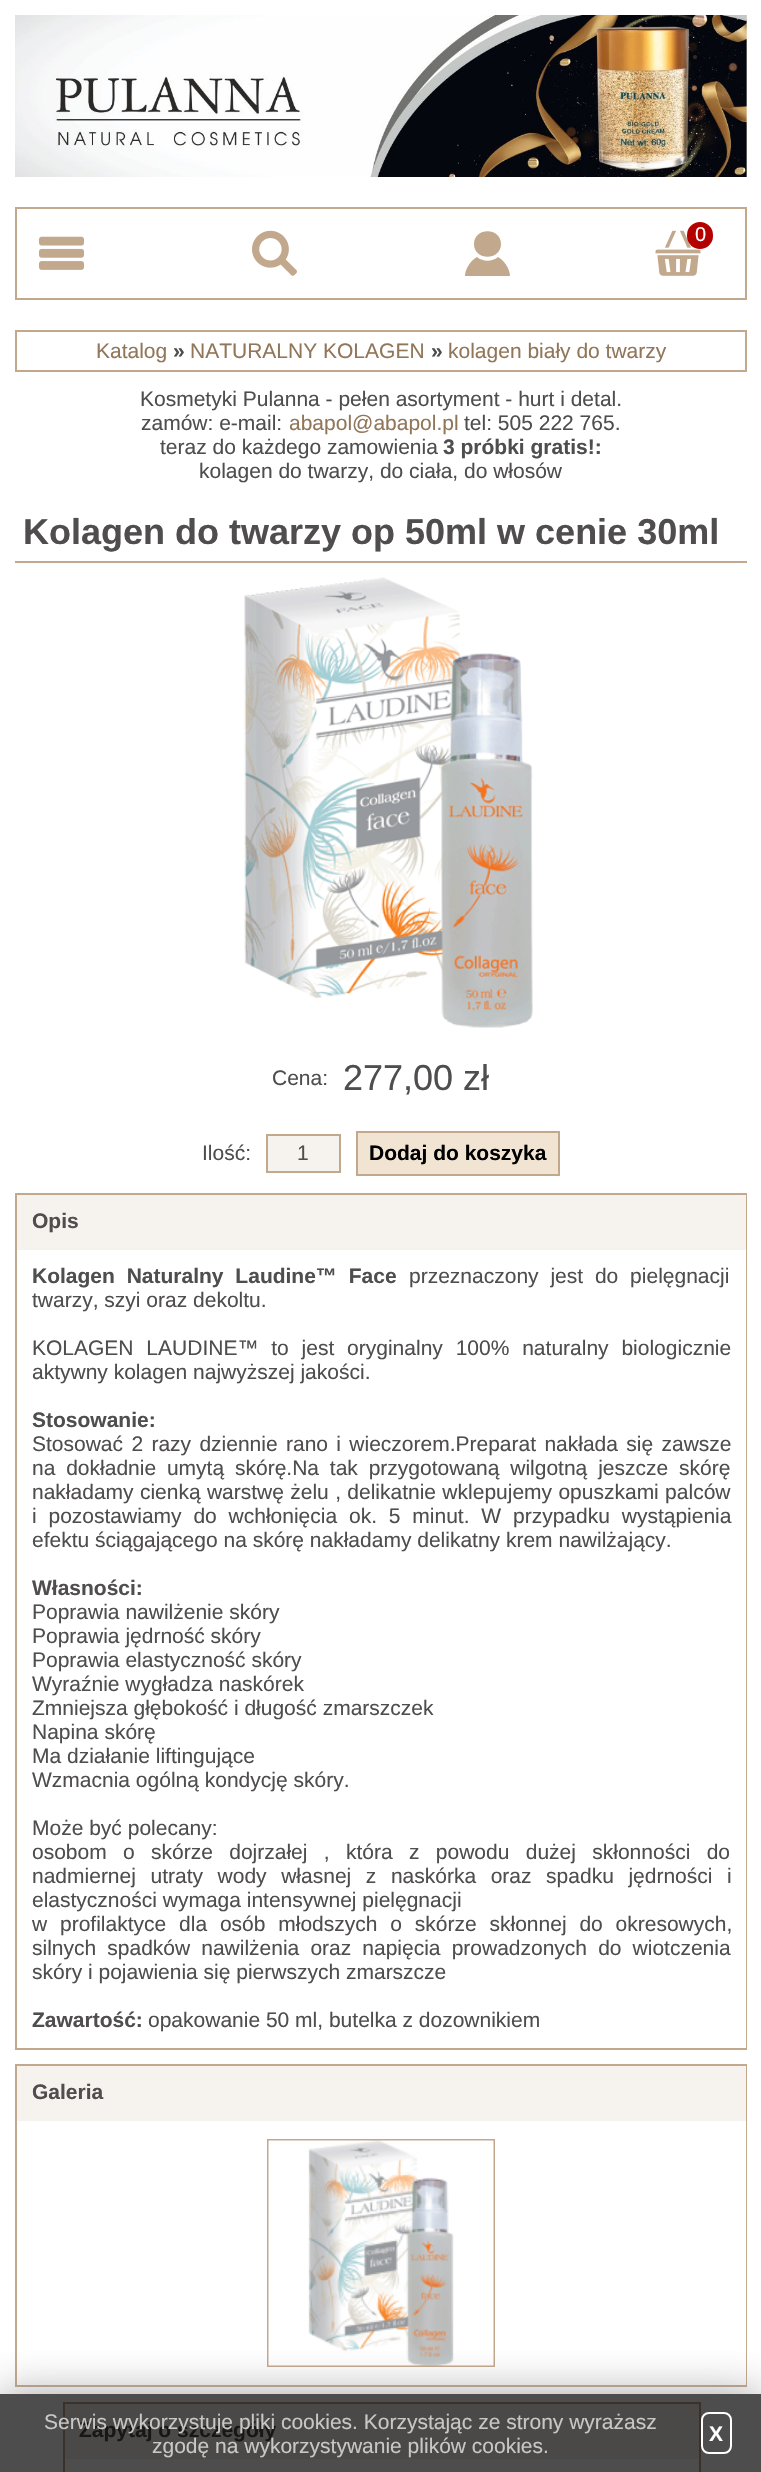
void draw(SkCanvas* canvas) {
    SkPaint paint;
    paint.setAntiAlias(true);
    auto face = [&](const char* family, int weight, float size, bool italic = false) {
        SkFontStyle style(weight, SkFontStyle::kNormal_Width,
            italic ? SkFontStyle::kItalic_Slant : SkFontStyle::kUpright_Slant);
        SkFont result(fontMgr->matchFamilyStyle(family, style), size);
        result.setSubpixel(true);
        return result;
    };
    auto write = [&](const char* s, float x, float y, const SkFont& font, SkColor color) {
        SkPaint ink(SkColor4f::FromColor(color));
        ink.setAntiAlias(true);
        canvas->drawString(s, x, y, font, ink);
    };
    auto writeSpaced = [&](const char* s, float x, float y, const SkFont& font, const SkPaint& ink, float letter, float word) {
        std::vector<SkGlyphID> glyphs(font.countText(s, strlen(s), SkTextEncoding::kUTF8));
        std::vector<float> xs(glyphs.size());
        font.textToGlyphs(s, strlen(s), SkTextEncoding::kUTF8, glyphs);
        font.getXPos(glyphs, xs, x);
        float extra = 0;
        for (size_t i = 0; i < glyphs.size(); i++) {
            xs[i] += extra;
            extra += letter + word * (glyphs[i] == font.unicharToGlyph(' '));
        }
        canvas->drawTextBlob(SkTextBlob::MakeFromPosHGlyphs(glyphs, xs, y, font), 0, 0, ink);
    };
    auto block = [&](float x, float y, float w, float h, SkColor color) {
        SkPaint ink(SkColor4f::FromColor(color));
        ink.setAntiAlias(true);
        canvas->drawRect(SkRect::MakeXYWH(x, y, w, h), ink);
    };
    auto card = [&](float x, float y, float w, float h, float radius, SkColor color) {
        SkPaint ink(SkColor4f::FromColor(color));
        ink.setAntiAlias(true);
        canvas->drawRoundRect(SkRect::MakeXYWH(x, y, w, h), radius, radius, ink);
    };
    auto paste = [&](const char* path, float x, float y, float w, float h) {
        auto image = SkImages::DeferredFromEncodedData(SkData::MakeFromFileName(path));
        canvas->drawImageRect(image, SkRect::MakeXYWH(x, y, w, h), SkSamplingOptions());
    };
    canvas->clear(SK_ColorWHITE);
    block(0, 2394, 761, 78, SkColorSetRGB(77, 77, 77));
    paste("pic1.png", 15, 15, 732, 162);
    paint.setStyle(SkPaint::kStroke_Style);
    paint.setStrokeWidth(2);
    paint.setColor(SkColorSetRGB(194, 168, 140));
    canvas->drawRect(SkRect::MakeXYWH(16, 208, 730, 91), paint);
    paste("pic2.png", 39, 236, 45, 34);
    paste("pic3.png", 252, 230, 45, 46);
    paint.setStyle(SkPaint::kFill_Style);
    canvas->drawPath(SkPathBuilder().moveTo(501, 244).cubicTo(501, 261, 474, 261, 474, 244).cubicTo(474, 227, 501, 227, 501, 244).close().moveTo(498, 257).cubicTo(492, 262, 483, 262, 477, 257).cubicTo(471, 260, 465, 269, 465, 276).lineTo(510, 276).cubicTo(510, 269, 504, 260, 498, 257).close().detach(), paint);
    paste("pic4.png", 655, 230, 46, 46);
    card(687, 222, 26, 27, 13, SkColorSetRGB(181, 0, 0));
    auto kFont1 = face("Liberation Sans", 400, 20);
    write("0", 695, 241, kFont1, SK_ColorWHITE);
    paint.setStyle(SkPaint::kStroke_Style);
    canvas->drawRect(SkRect::MakeXYWH(16, 331, 730, 40), paint);
    auto kFont2 = face("Liberation Sans", 400, 21);
    write("Katalog", 96, 358, kFont2, SkColorSetRGB(145, 118, 89));
    auto kFont3 = face("Liberation Sans", 700, 21);
    write("»", 173, 358, kFont3, SkColorSetRGB(79, 77, 77));
    write("NATURALNY KOLAGEN", 190, 358, kFont2, SkColorSetRGB(145, 118, 89));
    write("»", 431, 358, kFont3, SkColorSetRGB(79, 77, 77));
    write("kolagen biały do twarzy", 448, 358, kFont2, SkColorSetRGB(145, 118, 89));
    write("Kosmetyki Pulanna - pełen asortyment - hurt i detal.", 140, 406, kFont2, SkColorSetRGB(79, 77, 77));
    write("zamów: e-mail:", 141, 430, kFont2, SkColorSetRGB(79, 77, 77));
    write("abapol@abapol.pl", 289, 430, kFont2, SkColorSetRGB(145, 118, 89));
    write("tel: 505 222 765.", 464, 430, kFont2, SkColorSetRGB(79, 77, 77));
    write("teraz do każdego zamowienia", 160, 454, kFont2, SkColorSetRGB(79, 77, 77));
    write("3 próbki gratis!:", 443, 454, kFont3, SkColorSetRGB(79, 77, 77));
    write("kolagen do twarzy, do ciała, do włosów", 199, 478, kFont2, SkColorSetRGB(79, 77, 77));
    block(15, 561, 732, 2, SkColorSetRGB(194, 168, 140));
    auto kFont4 = face("Liberation Sans", 700, 36);
    write("Kolagen do twarzy op 50ml w cenie 30ml", 23, 544, kFont4, SkColorSetRGB(79, 77, 77));
    paste("pic5.png", 244, 577, 289, 451);
    write("Cena:", 272, 1085, kFont2, SkColorSetRGB(79, 77, 77));
    auto kFont5 = face("Liberation Sans", 400, 36);
    write("277,00 zł", 343, 1090, kFont5, SkColorSetRGB(79, 77, 77));
    write("Ilość:", 202, 1160, kFont2, SkColorSetRGB(79, 77, 77));
    paint.setStyle(SkPaint::kFill_Style);
    paint.setColor(SkColorSetRGB(246, 243, 238));
    canvas->drawRect(SkRect::MakeXYWH(267, 1135, 73, 37), paint);
    paint.setStyle(SkPaint::kStroke_Style);
    paint.setColor(SkColorSetRGB(194, 168, 140));
    canvas->drawRect(SkRect::MakeXYWH(267, 1135, 73, 37), paint);
    write("1", 297, 1160, kFont2, SkColorSetRGB(79, 77, 77));
    paint.setStyle(SkPaint::kFill_Style);
    paint.setColor(SkColorSetRGB(241, 228, 211));
    canvas->drawRect(SkRect::MakeXYWH(357, 1132, 202, 43), paint);
    paint.setStyle(SkPaint::kStroke_Style);
    paint.setColor(SkColorSetRGB(194, 168, 140));
    canvas->drawRect(SkRect::MakeXYWH(357, 1132, 202, 43), paint);
    write("Dodaj do koszyka", 369, 1160, kFont3, SK_ColorBLACK);
    block(17, 1195, 729, 55, SkColorSetRGB(246, 243, 238));
    block(15, 1193, 732, 2, SkColorSetRGB(194, 168, 140));
    block(746, 1193, 1, 856, SkColorSetRGB(194, 168, 140));
    block(15, 1193, 2, 57, SkColorSetRGB(194, 168, 140));
    write("Opis", 32, 1228, kFont3, SkColorSetRGB(79, 77, 77));
    block(15, 2048, 732, 2, SkColorSetRGB(194, 168, 140));
    block(15, 1250, 2, 799, SkColorSetRGB(194, 168, 140));
    paint.setStyle(SkPaint::kFill_Style);
    paint.setColor(SkColorSetRGB(79, 77, 77));
    writeSpaced("Kolagen Naturalny Laudine™ Face", 32, 1283, kFont3, paint, 0, 6);
    writeSpaced("przeznaczony jest do pielęgnacji", 409, 1283, kFont2, paint, 0, 6);
    write("twarzy, szyi oraz dekoltu.", 32, 1307, kFont2, SkColorSetRGB(79, 77, 77));
    writeSpaced("KOLAGEN LAUDINE™ to jest oryginalny 100% naturalny biologicznie", 32, 1355, kFont2, paint, 0, 7);
    write("aktywny kolagen najwyższej jakości.", 32, 1379, kFont2, SkColorSetRGB(79, 77, 77));
    write("Stosowanie:", 32, 1427, kFont3, SkColorSetRGB(79, 77, 77));
    writeSpaced("Stosować 2 razy dziennie rano i wieczorem.Preparat nakłada się zawsze", 32, 1451, kFont2, paint, 0, 2.5f);
    writeSpaced("na dokładnie umytą skórę.Na tak przygotowaną wilgotną jeszcze skórę", 32, 1475, kFont2, paint, 0, 5);
    writeSpaced("nakładamy cienką warstwę żelu , delikatnie wklepujemy opuszkami palców", 32, 1499, kFont2, paint, 0, 0.5f);
    writeSpaced("i pozostawiamy do wchłonięcia ok. 5 minut. W przypadku wystąpienia", 32, 1523, kFont2, paint, 0, 6);
    write("efektu ściągającego na skórę nakładamy delikatny krem nawilżający.", 32, 1547, kFont2, SkColorSetRGB(79, 77, 77));
    write("Własności:", 32, 1595, kFont3, SkColorSetRGB(79, 77, 77));
    write("Poprawia nawilżenie skóry", 32, 1619, kFont2, SkColorSetRGB(79, 77, 77));
    write("Poprawia jędrność skóry", 32, 1643, kFont2, SkColorSetRGB(79, 77, 77));
    write("Poprawia elastyczność skóry", 32, 1667, kFont2, SkColorSetRGB(79, 77, 77));
    write("Wyraźnie wygładza naskórek", 32, 1691, kFont2, SkColorSetRGB(79, 77, 77));
    write("Zmniejsza głębokość i długość zmarszczek", 32, 1715, kFont2, SkColorSetRGB(79, 77, 77));
    write("Napina skórę", 32, 1739, kFont2, SkColorSetRGB(79, 77, 77));
    write("Ma działanie liftingujące", 32, 1763, kFont2, SkColorSetRGB(79, 77, 77));
    write("Wzmacnia ogólną kondycję skóry.", 32, 1787, kFont2, SkColorSetRGB(79, 77, 77));
    write("Może być polecany:", 32, 1835, kFont2, SkColorSetRGB(79, 77, 77));
    writeSpaced("osobom o skórze dojrzałej , która z powodu dużej skłonności do", 32, 1859, kFont2, paint, 0, 10.5f);
    writeSpaced("nadmiernej utraty wody własnej z naskórka oraz spadku jędrności i", 32, 1883, kFont2, paint, 0, 8.75f);
    write("elastyczności wymaga intensywnej pielęgnacji", 32, 1907, kFont2, SkColorSetRGB(79, 77, 77));
    writeSpaced("w profilaktyce dla osób młodszych o skórze skłonnej do okresowych,", 32, 1931, kFont2, paint, 0, 7);
    writeSpaced("silnych spadków nawilżenia oraz napięcia prowadzonych do wiotczenia", 32, 1955, kFont2, paint, 0, 5.25f);
    write("skóry i pojawienia się pierwszych zmarszcze", 32, 1979, kFont2, SkColorSetRGB(79, 77, 77));
    write("Zawartość:", 32, 2027, kFont3, SkColorSetRGB(79, 77, 77));
    write("opakowanie 50 ml, butelka z dozownikiem", 148, 2027, kFont2, SkColorSetRGB(79, 77, 77));
    block(17, 2066, 729, 55, SkColorSetRGB(246, 243, 238));
    block(15, 2064, 732, 2, SkColorSetRGB(194, 168, 140));
    block(746, 2064, 1, 323, SkColorSetRGB(194, 168, 140));
    block(15, 2064, 2, 57, SkColorSetRGB(194, 168, 140));
    write("Galeria", 32, 2099, kFont3, SkColorSetRGB(79, 77, 77));
    block(15, 2385, 732, 2, SkColorSetRGB(194, 168, 140));
    block(15, 2121, 2, 266, SkColorSetRGB(194, 168, 140));
    paint.setStyle(SkPaint::kStroke_Style);
    paint.setColor(SkColorSetRGB(194, 168, 140));
    canvas->drawRect(SkRect::MakeXYWH(268, 2140, 226, 226), paint);
    paste("pic6.png", 268, 2140, 226, 226);
    block(65, 2404, 634, 55, SkColorSetRGB(74, 73, 71));
    block(63, 2402, 638, 2, SkColorSetRGB(58, 50, 42));
    block(699, 2402, 2, 70, SkColorSetRGB(58, 50, 42));
    block(63, 2402, 2, 70, SkColorSetRGB(58, 50, 42));
    write("Zapytaj o szczegóły", 79, 2437, kFont3, SkColorSetRGB(24, 23, 23));
    canvas->save();
    canvas->clipRect(SkRect::MakeXYWH(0, 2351, 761, 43));
    paint.setStyle(SkPaint::kFill_Style);
    paint.setColor(SkColorSetARGB(179, 128, 128, 128));
    paint.setMaskFilter(SkMaskFilter::MakeBlur(kNormal_SkBlurStyle, 22.5f));
    canvas->drawRect(SkRect::MakeXYWH(0, 2394, 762, 78), paint);
    paint.setMaskFilter(nullptr);
    canvas->restore();
    write("Serwis wykorzystuje pliki cookies. Korzystając ze strony wyrażasz", 44, 2429, kFont2, SkColorSetRGB(200, 199, 199));
    write("zgodę na wykorzystywanie plików cookies.", 152, 2453, kFont2, SkColorSetRGB(200, 199, 199));
    paint.setStyle(SkPaint::kStroke_Style);
    paint.setColor(SK_ColorWHITE);
    canvas->drawRoundRect(SkRect::MakeXYWH(702, 2413, 29, 40), 7, 7, paint);
    write("X", 709, 2441, kFont3, SK_ColorWHITE);
}
